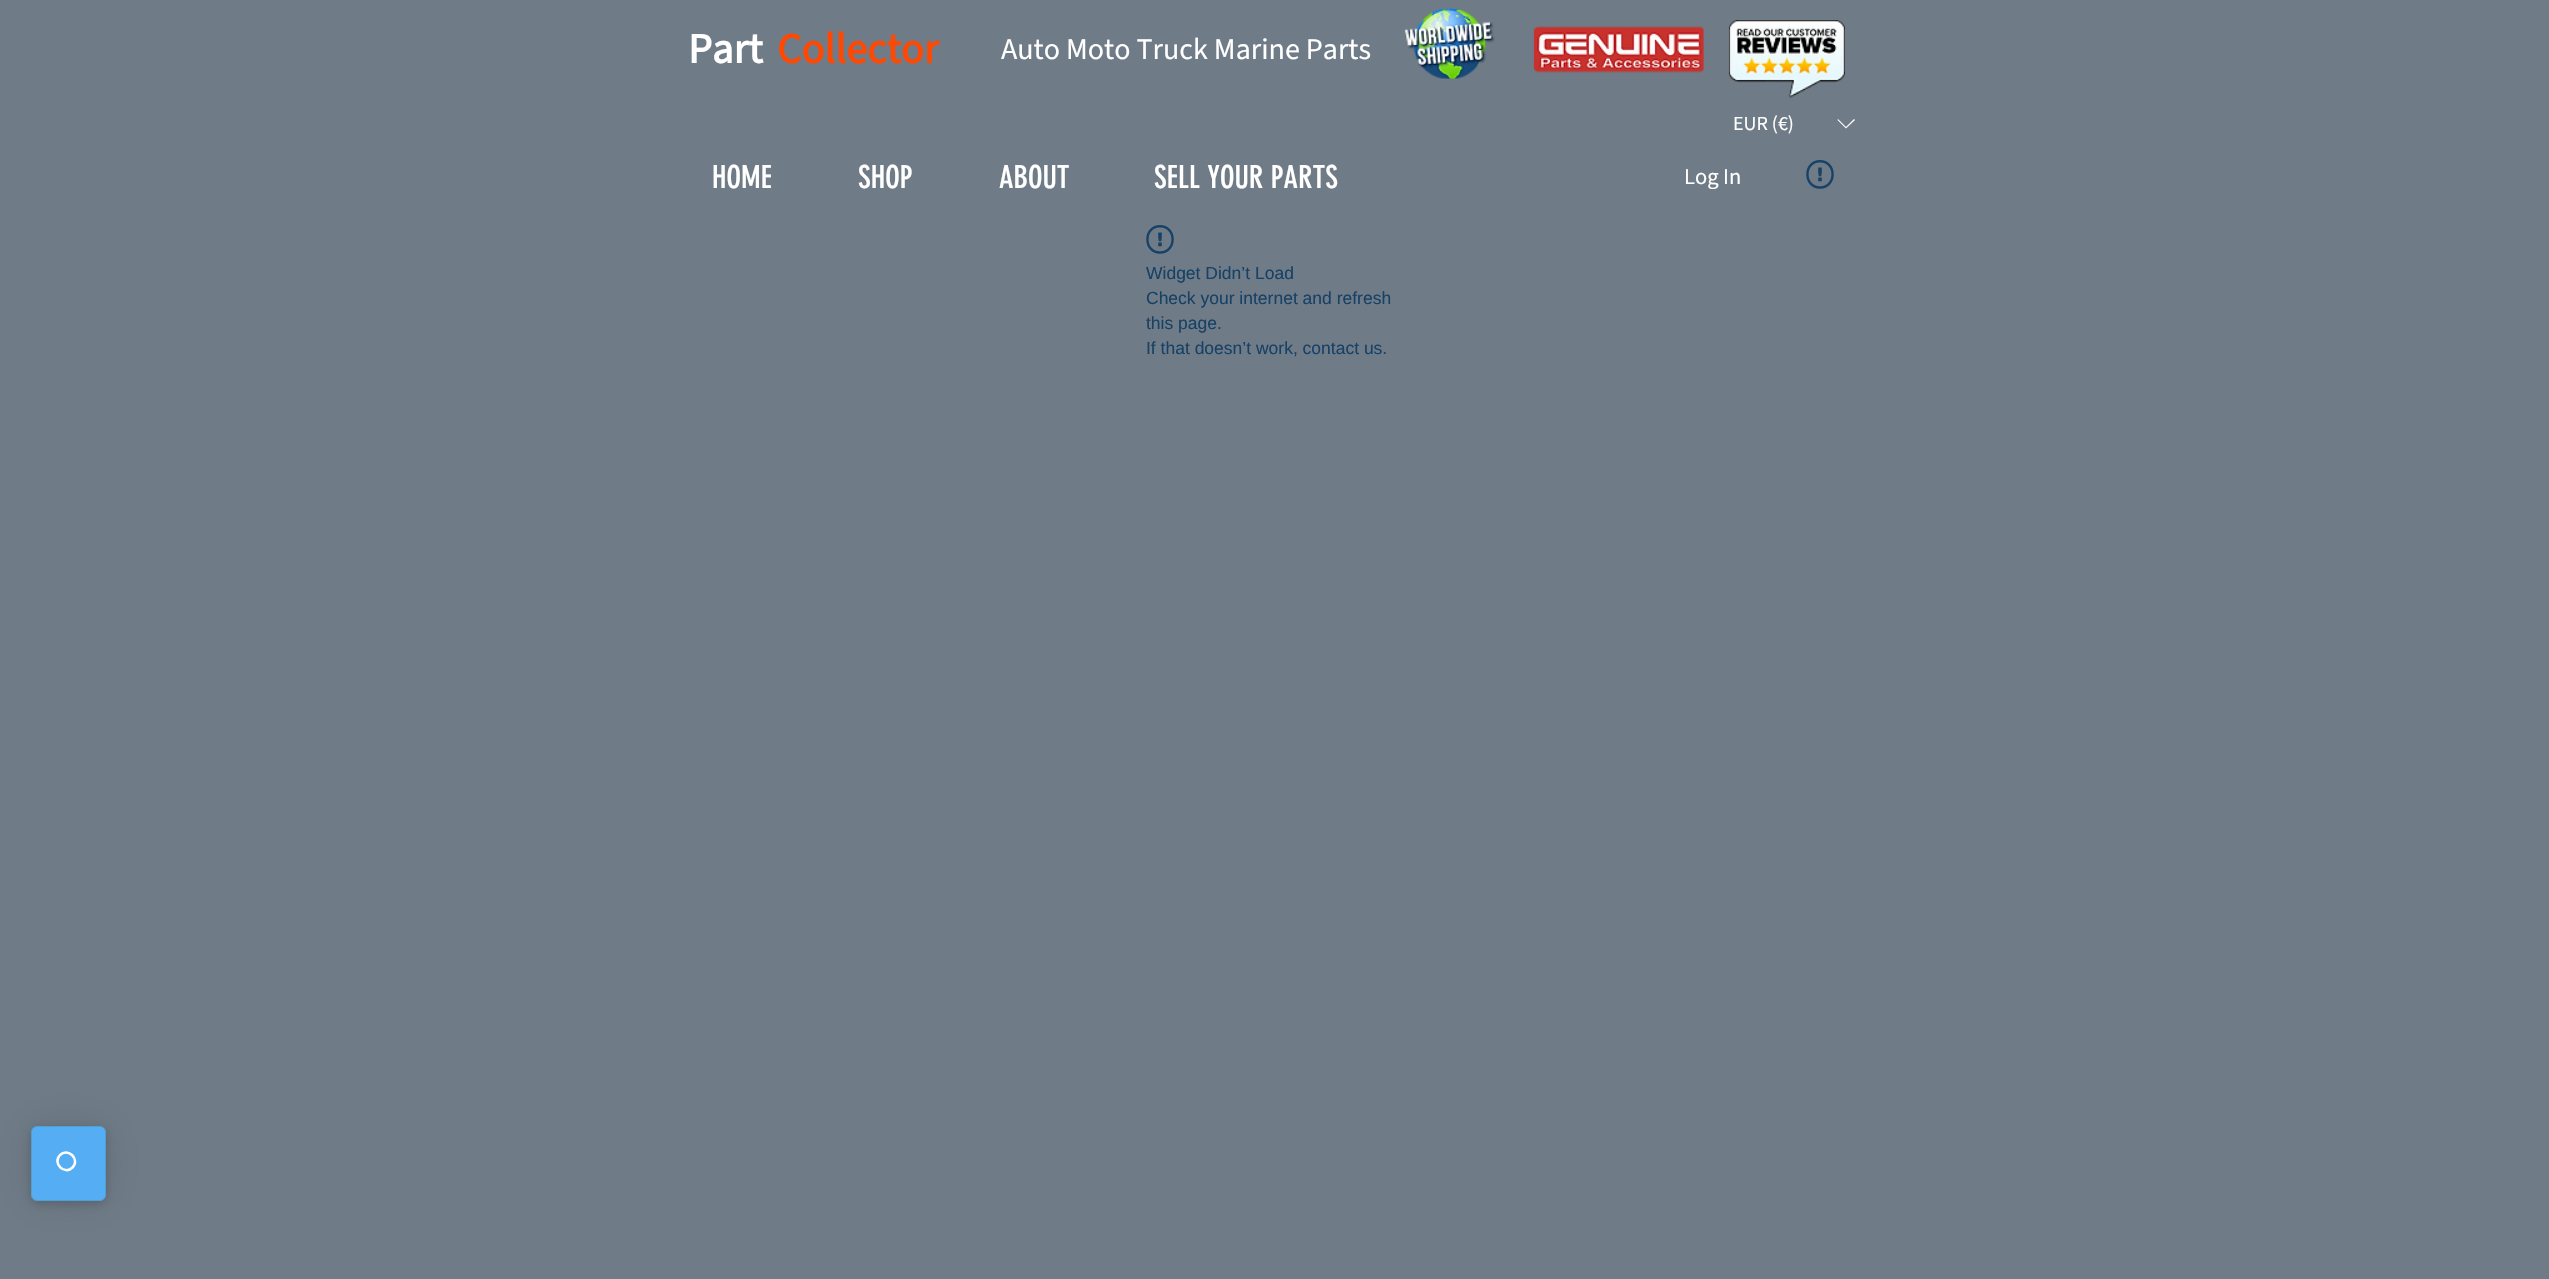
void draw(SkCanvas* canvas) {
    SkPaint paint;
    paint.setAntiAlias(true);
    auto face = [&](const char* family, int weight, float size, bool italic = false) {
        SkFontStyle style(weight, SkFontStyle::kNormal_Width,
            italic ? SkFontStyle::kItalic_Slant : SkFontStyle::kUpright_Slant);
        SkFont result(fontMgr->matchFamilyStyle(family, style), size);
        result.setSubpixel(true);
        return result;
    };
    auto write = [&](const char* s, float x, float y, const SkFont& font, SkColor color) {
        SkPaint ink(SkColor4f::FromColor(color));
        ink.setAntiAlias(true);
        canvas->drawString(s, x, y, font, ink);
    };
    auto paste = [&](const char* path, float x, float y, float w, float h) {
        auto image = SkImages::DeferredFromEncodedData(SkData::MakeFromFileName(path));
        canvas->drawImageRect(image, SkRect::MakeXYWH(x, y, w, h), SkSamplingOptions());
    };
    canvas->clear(SkColorSetRGB(111, 123, 135));
    auto kFont1 = face("Source Sans 3", 700, 42.5f);
    write("Part", 688, 63, kFont1, SK_ColorWHITE);
    write("Collector", 777, 63, kFont1, SkColorSetRGB(255, 73, 3));
    auto kFont2 = face("Source Sans 3", 400, 30);
    write("Auto Moto Truck Marine Parts", 1001, 59, kFont2, SK_ColorWHITE);
    paste("pic1.png", 1404, 8, 91, 71);
    paste("pic2.png", 1533, 26, 171, 47);
    paste("pic3.png", 1728, 20, 117, 78);
    auto kFont3 = face("Source Sans 3", 400, 20);
    write("EUR (€)", 1733, 130, kFont3, SK_ColorWHITE);
    paint.setColor(SK_ColorWHITE);
    canvas->drawPath(SkPathBuilder(SkPathFillType::kEvenOdd).moveTo(1854, 119).lineTo(1855, 120).lineTo(1846, 128.5f).lineTo(1837.5f, 120).lineTo(1838, 119).lineTo(1846, 127).close().detach(), paint);
    auto kFont4 = face("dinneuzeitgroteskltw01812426", 400, 31.25f);
    write("HOME", 712, 188, kFont4, SK_ColorWHITE);
    write("SHOP", 858, 188, kFont4, SK_ColorWHITE);
    write("ABOUT", 999, 188, kFont4, SK_ColorWHITE);
    write("SELL YOUR PARTS", 1154, 188, kFont4, SK_ColorWHITE);
    auto kFont5 = face("Source Sans 3", 400, 22.5f);
    write("Log In", 1684, 184, kFont5, SK_ColorWHITE);
    paste("pic4.png", 1806, 160, 28, 29);
    paste("pic4.png", 1146, 225, 28, 29);
    auto kFont6 = face("Liberation Sans", 400, 17.5f);
    write("Widget Didn’t Load", 1146, 279, kFont6, SkColorSetRGB(23, 65, 101));
    write("Check your internet and refresh", 1146, 304, kFont6, SkColorSetRGB(23, 65, 101));
    write("this page.", 1146, 329, kFont6, SkColorSetRGB(23, 65, 101));
    write("If that doesn’t work, contact us.", 1146, 354, kFont6, SkColorSetRGB(23, 65, 101));
    paint.setColor(SkColorSetARGB(38, 0, 0, 0));
    paint.setMaskFilter(SkMaskFilter::MakeBlur(kNormal_SkBlurStyle, 5));
    canvas->drawRoundRect(SkRect::MakeXYWH(31, 1129, 75, 75), 6, 6, paint);
    paint.setMaskFilter(nullptr);
    paint.setColor(SkColorSetARGB(26, 0, 0, 0));
    paint.setMaskFilter(SkMaskFilter::MakeBlur(kNormal_SkBlurStyle, 19));
    canvas->drawRoundRect(SkRect::MakeXYWH(31, 1126, 75, 75), 6, 6, paint);
    paint.setMaskFilter(nullptr);
    paint.setColor(SkColorSetRGB(85, 173, 244));
    canvas->drawRoundRect(SkRect::MakeXYWH(31.5f, 1126.5f, 74, 74), 5.5f, 5.5f, paint);
    paint.setStyle(SkPaint::kStroke_Style);
    paint.setStrokeWidth(1);
    paint.setColor(SkColorSetRGB(78, 160, 207));
    canvas->drawRoundRect(SkRect::MakeXYWH(31.5f, 1126.5f, 74, 74), 5.5f, 5.5f, paint);
    paint.setStrokeWidth(2.5f);
    paint.setColor(SK_ColorWHITE);
    canvas->drawPath(SkPathBuilder().moveTo(60, 1155).cubicTo(68, 1147, 80.5f, 1159.5f, 72.5f, 1167.5f).cubicTo(64.5f, 1175.5f, 52, 1163.5f, 60, 1155).close().detach(), paint);
}
